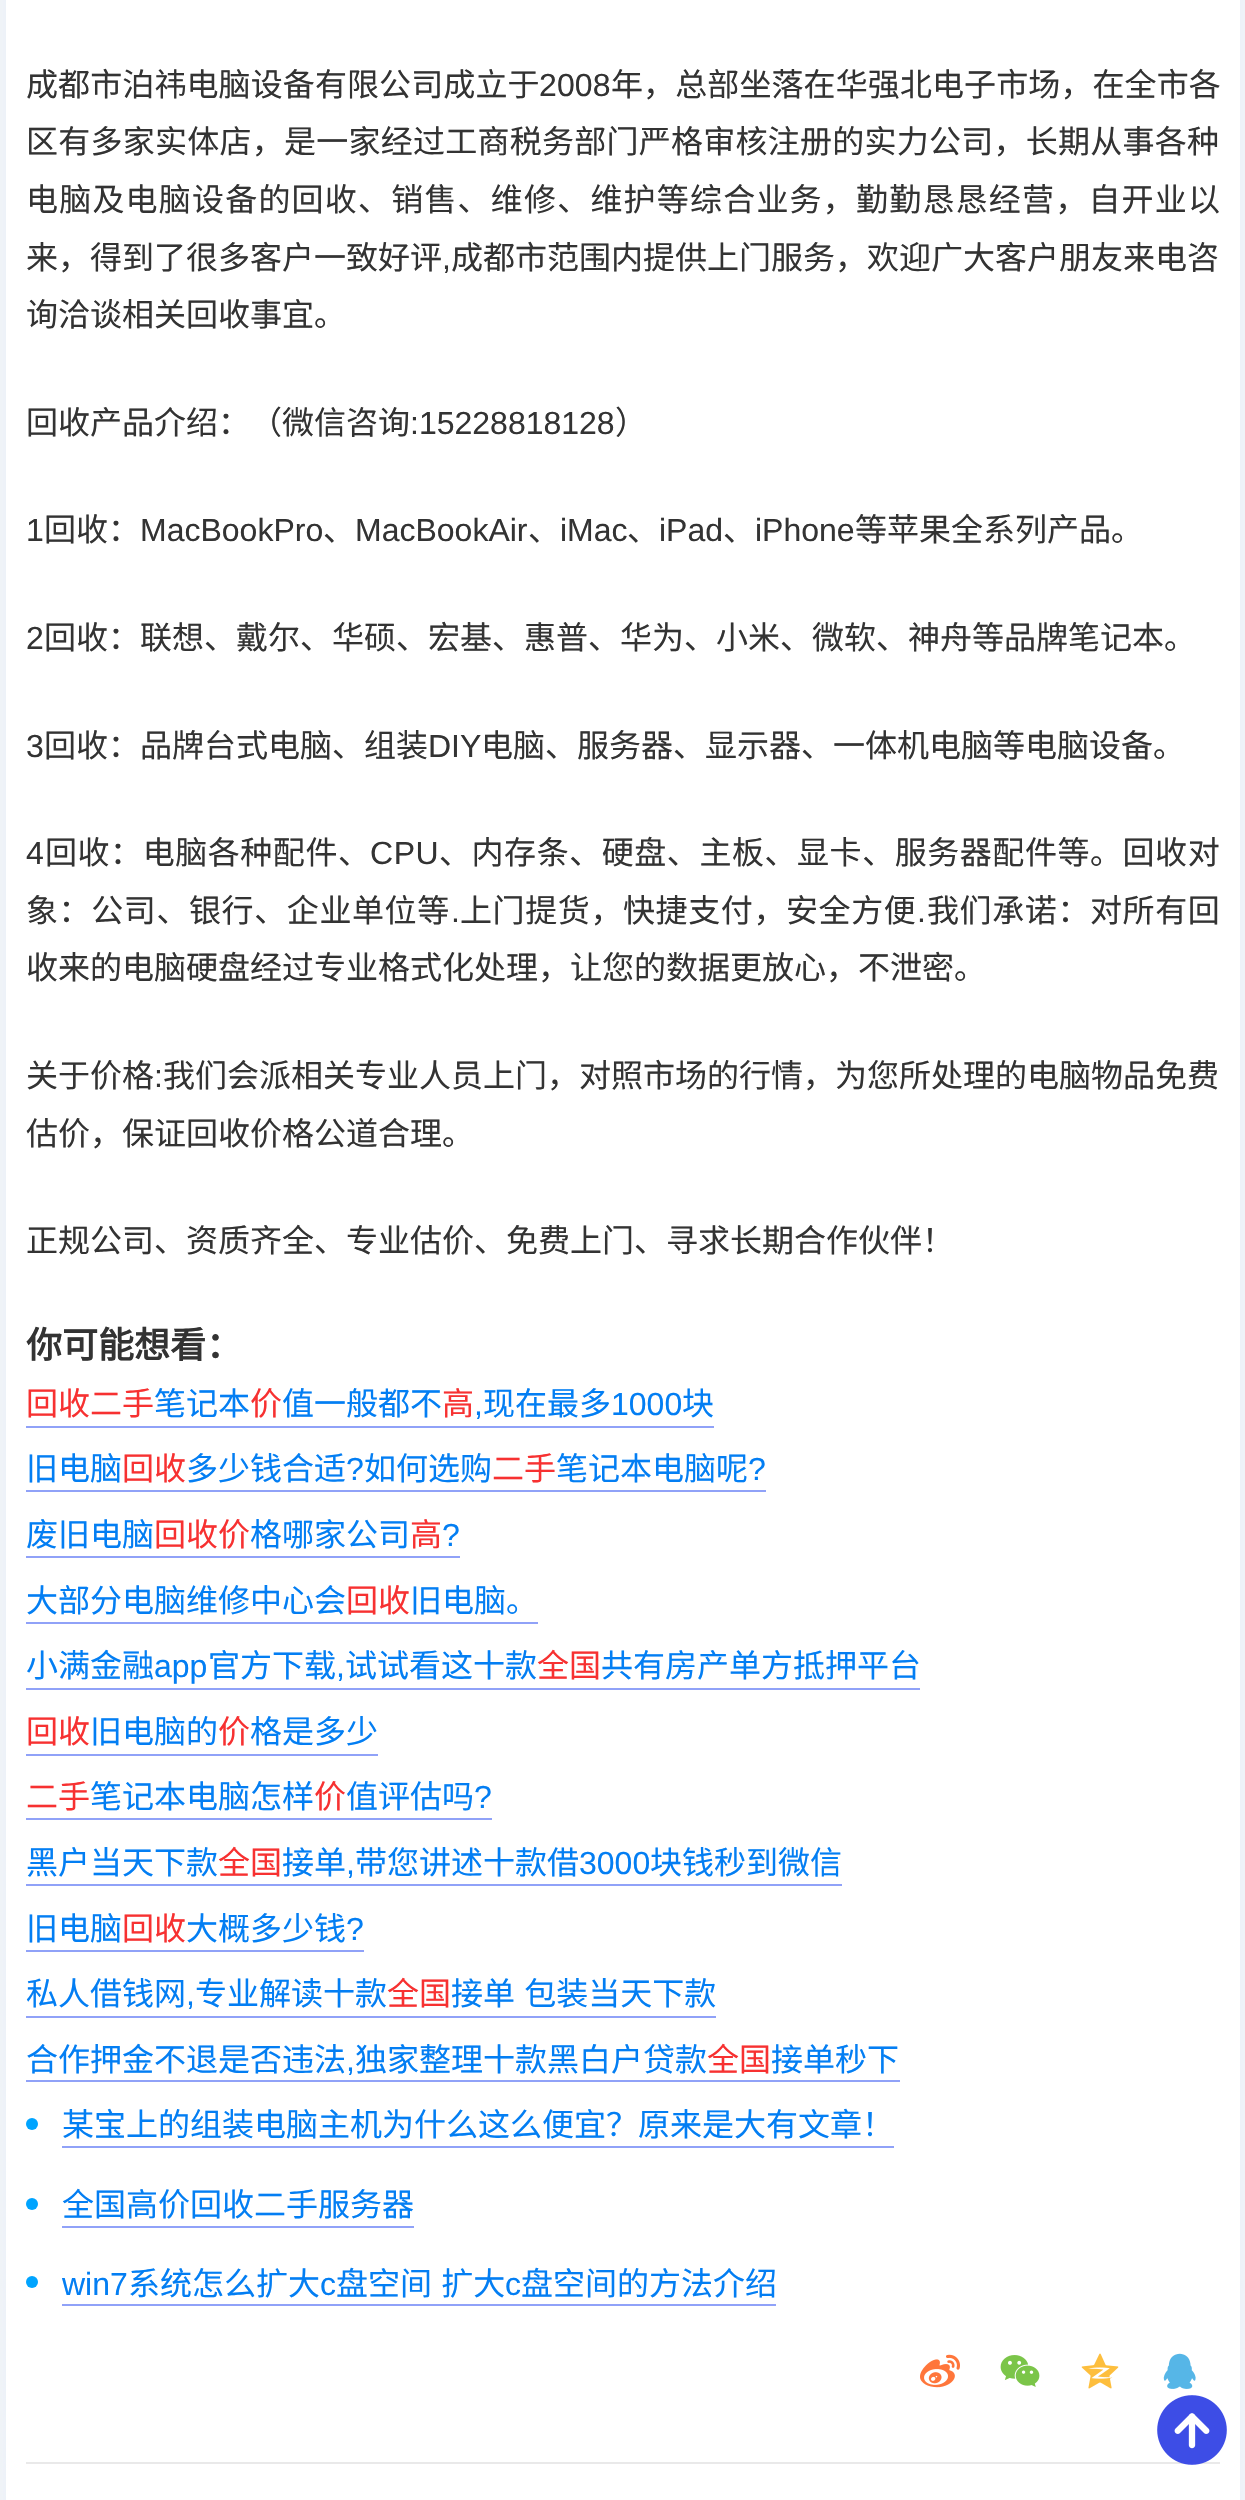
void draw(SkCanvas* canvas) {
    SkPaint paint;
    paint.setAntiAlias(true);
    auto face = [&](const char* family, int weight, float size, bool italic = false) {
        SkFontStyle style(weight, SkFontStyle::kNormal_Width,
            italic ? SkFontStyle::kItalic_Slant : SkFontStyle::kUpright_Slant);
        SkFont result(fontMgr->matchFamilyStyle(family, style), size);
        result.setSubpixel(true);
        return result;
    };
    auto write = [&](const char* s, float x, float y, const SkFont& font, SkColor color) {
        SkPaint ink(SkColor4f::FromColor(color));
        ink.setAntiAlias(true);
        canvas->drawString(s, x, y, font, ink);
    };
    auto writeSpaced = [&](const char* s, float x, float y, const SkFont& font, const SkPaint& ink, float letter, float word) {
        std::vector<SkGlyphID> glyphs(font.countText(s, strlen(s), SkTextEncoding::kUTF8));
        std::vector<float> xs(glyphs.size());
        font.textToGlyphs(s, strlen(s), SkTextEncoding::kUTF8, glyphs);
        font.getXPos(glyphs, xs, x);
        float extra = 0;
        for (size_t i = 0; i < glyphs.size(); i++) {
            xs[i] += extra;
            extra += letter + word * (glyphs[i] == font.unicharToGlyph(' '));
        }
        canvas->drawTextBlob(SkTextBlob::MakeFromPosHGlyphs(glyphs, xs, y, font), 0, 0, ink);
    };
    auto block = [&](float x, float y, float w, float h, SkColor color) {
        SkPaint ink(SkColor4f::FromColor(color));
        ink.setAntiAlias(true);
        canvas->drawRect(SkRect::MakeXYWH(x, y, w, h), ink);
    };
    auto paste = [&](const char* path, float x, float y, float w, float h) {
        auto image = SkImages::DeferredFromEncodedData(SkData::MakeFromFileName(path));
        canvas->drawImageRect(image, SkRect::MakeXYWH(x, y, w, h), SkSamplingOptions());
    };
    canvas->clear(SkColorSetRGB(245, 246, 247));
    paint.setColor(SkColorSetARGB(38, 135, 183, 253));
    paint.setMaskFilter(SkMaskFilter::MakeBlur(kNormal_SkBlurStyle, 16));
    canvas->drawRect(SkRect::MakeXYWH(6, -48, 1234, 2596), paint);
    paint.setMaskFilter(nullptr);
    block(6, 0, 1234, 2500, SK_ColorWHITE);
    auto kFont1 = face("Noto Sans CJK SC", 400, 32);
    paint.setColor(SkColorSetRGB(51, 51, 51));
    writeSpaced("成都市泊祎电脑设备有限公司成立于", 26, 96, kFont1, paint, 0.1f, 0);
    auto kFont2 = face("Liberation Sans", 400, 32);
    writeSpaced("2008", 539, 96, kFont2, paint, 0.1f, 0);
    writeSpaced("年，总部坐落在华强北电子市场，在全市各", 611, 96, kFont1, paint, 0.1f, 0);
    writeSpaced("区有多家实体店，是一家经过工商税务部门严格审核注册的实力公司，长期从事各种", 26, 153, kFont1, paint, 0.25f, 0);
    writeSpaced("电脑及电脑设备的回收、销售、维修、维护等综合业务，勤勤恳恳经营，自开业以", 26, 211, kFont1, paint, 1.2f, 0);
    write("来，得到了很多客户一致好评", 26, 269, kFont1, SkColorSetRGB(51, 51, 51));
    write(",", 442, 269, kFont2, SkColorSetRGB(51, 51, 51));
    write("成都市范围内提供上门服务，欢迎广大客户朋友来电咨", 451, 269, kFont1, SkColorSetRGB(51, 51, 51));
    write("询洽谈相关回收事宜。", 26, 326, kFont1, SkColorSetRGB(51, 51, 51));
    write("回收产品介绍：（微信咨询", 26, 434, kFont1, SkColorSetRGB(51, 51, 51));
    write(":15228818128", 410, 434, kFont2, SkColorSetRGB(51, 51, 51));
    write("）", 615, 434, kFont1, SkColorSetRGB(51, 51, 51));
    write("1", 26, 541, kFont2, SkColorSetRGB(51, 51, 51));
    write("回收：", 44, 541, kFont1, SkColorSetRGB(51, 51, 51));
    write("MacBookPro", 140, 541, kFont2, SkColorSetRGB(51, 51, 51));
    write("、", 323, 541, kFont1, SkColorSetRGB(51, 51, 51));
    write("MacBookAir", 355, 541, kFont2, SkColorSetRGB(51, 51, 51));
    write("、", 528, 541, kFont1, SkColorSetRGB(51, 51, 51));
    write("iMac", 560, 541, kFont2, SkColorSetRGB(51, 51, 51));
    write("、", 627, 541, kFont1, SkColorSetRGB(51, 51, 51));
    write("iPad", 659, 541, kFont2, SkColorSetRGB(51, 51, 51));
    write("、", 723, 541, kFont1, SkColorSetRGB(51, 51, 51));
    write("iPhone", 755, 541, kFont2, SkColorSetRGB(51, 51, 51));
    write("等苹果全系列产品。", 855, 541, kFont1, SkColorSetRGB(51, 51, 51));
    write("2", 26, 649, kFont2, SkColorSetRGB(51, 51, 51));
    write("回收：联想、戴尔、华硕、宏基、惠普、华为、小米、微软、神舟等品牌笔记本。", 44, 649, kFont1, SkColorSetRGB(51, 51, 51));
    write("3", 26, 757, kFont2, SkColorSetRGB(51, 51, 51));
    write("回收：品牌台式电脑、组装", 44, 757, kFont1, SkColorSetRGB(51, 51, 51));
    write("DIY", 428, 757, kFont2, SkColorSetRGB(51, 51, 51));
    write("电脑、服务器、显示器、一体机电脑等电脑设备。", 481, 757, kFont1, SkColorSetRGB(51, 51, 51));
    writeSpaced("4", 26, 864, kFont2, paint, 0.55f, 0);
    writeSpaced("回收：电脑各种配件、", 45, 864, kFont1, paint, 0.55f, 0);
    writeSpaced("CPU", 370, 864, kFont2, paint, 0.55f, 0);
    writeSpaced("、内存条、硬盘、主板、显卡、服务器配件等。回收对", 439, 864, kFont1, paint, 0.55f, 0);
    writeSpaced("象：公司、银行、企业单位等", 26, 922, kFont1, paint, 0.6f, 0);
    writeSpaced(".", 451, 922, kFont2, paint, 0.6f, 0);
    writeSpaced("上门提货，快捷支付，安全方便", 460, 922, kFont1, paint, 0.6f, 0);
    writeSpaced(".", 917, 922, kFont2, paint, 0.6f, 0);
    writeSpaced("我们承诺：对所有回", 927, 922, kFont1, paint, 0.6f, 0);
    write("收来的电脑硬盘经过专业格式化处理，让您的数据更放心，不泄密。", 26, 979, kFont1, SkColorSetRGB(51, 51, 51));
    write("关于价格", 26, 1087, kFont1, SkColorSetRGB(51, 51, 51));
    write(":", 154, 1087, kFont2, SkColorSetRGB(51, 51, 51));
    write("我们会派相关专业人员上门，对照市场的行情，为您所处理的电脑物品免费", 163, 1087, kFont1, SkColorSetRGB(51, 51, 51));
    write("估价，保证回收价格公道合理。", 26, 1145, kFont1, SkColorSetRGB(51, 51, 51));
    write("正规公司、资质齐全、专业估价、免费上门、寻求长期合作伙伴！", 26, 1252, kFont1, SkColorSetRGB(51, 51, 51));
    auto kFont3 = face("Noto Sans CJK SC", 700, 36);
    write("你可能想看：", 26, 1358, kFont3, SkColorSetRGB(51, 51, 51));
    write("回收二手", 26, 1415, kFont1, SkColorSetRGB(247, 49, 49));
    write("笔记本", 154, 1415, kFont1, SkColorSetRGB(3, 126, 243));
    write("价", 250, 1415, kFont1, SkColorSetRGB(247, 49, 49));
    write("值一般都不", 282, 1415, kFont1, SkColorSetRGB(3, 126, 243));
    write("高", 442, 1415, kFont1, SkColorSetRGB(247, 49, 49));
    write(",", 474, 1415, kFont2, SkColorSetRGB(3, 126, 243));
    block(26, 1426, 688, 2, SkColorSetRGB(144, 162, 248));
    write("现在最多", 483, 1415, kFont1, SkColorSetRGB(3, 126, 243));
    write("1000", 611, 1415, kFont2, SkColorSetRGB(3, 126, 243));
    write("块", 682, 1415, kFont1, SkColorSetRGB(3, 126, 243));
    write("旧电脑", 26, 1480, kFont1, SkColorSetRGB(3, 126, 243));
    write("回收", 122, 1480, kFont1, SkColorSetRGB(247, 49, 49));
    write("多少钱合适", 186, 1480, kFont1, SkColorSetRGB(3, 126, 243));
    write("?", 346, 1480, kFont2, SkColorSetRGB(3, 126, 243));
    block(26, 1490, 740, 2, SkColorSetRGB(144, 162, 248));
    write("如何选购", 364, 1480, kFont1, SkColorSetRGB(3, 126, 243));
    write("二手", 492, 1480, kFont1, SkColorSetRGB(247, 49, 49));
    write("笔记本电脑呢", 556, 1480, kFont1, SkColorSetRGB(3, 126, 243));
    write("?", 748, 1480, kFont2, SkColorSetRGB(3, 126, 243));
    write("废旧电脑", 26, 1546, kFont1, SkColorSetRGB(3, 126, 243));
    write("回收价", 154, 1546, kFont1, SkColorSetRGB(247, 49, 49));
    write("格哪家公司", 250, 1546, kFont1, SkColorSetRGB(3, 126, 243));
    write("高", 410, 1546, kFont1, SkColorSetRGB(247, 49, 49));
    write("?", 442, 1546, kFont2, SkColorSetRGB(3, 126, 243));
    block(26, 1556, 434, 2, SkColorSetRGB(144, 162, 248));
    write("大部分电脑维修中心会", 26, 1612, kFont1, SkColorSetRGB(3, 126, 243));
    block(26, 1622, 512, 2, SkColorSetRGB(144, 162, 248));
    write("回收", 346, 1612, kFont1, SkColorSetRGB(247, 49, 49));
    write("旧电脑。", 410, 1612, kFont1, SkColorSetRGB(3, 126, 243));
    write("小满金融", 26, 1677, kFont1, SkColorSetRGB(3, 126, 243));
    write("app", 154, 1677, kFont2, SkColorSetRGB(3, 126, 243));
    write("官方下载", 208, 1677, kFont1, SkColorSetRGB(3, 126, 243));
    write(",", 336, 1677, kFont2, SkColorSetRGB(3, 126, 243));
    block(26, 1688, 894, 2, SkColorSetRGB(144, 162, 248));
    write("试试看这十款", 345, 1677, kFont1, SkColorSetRGB(3, 126, 243));
    write("全国", 537, 1677, kFont1, SkColorSetRGB(247, 49, 49));
    write("共有房产单方抵押平台", 601, 1677, kFont1, SkColorSetRGB(3, 126, 243));
    write("回收", 26, 1743, kFont1, SkColorSetRGB(247, 49, 49));
    block(26, 1754, 352, 2, SkColorSetRGB(144, 162, 248));
    write("旧电脑的", 90, 1743, kFont1, SkColorSetRGB(3, 126, 243));
    write("价", 218, 1743, kFont1, SkColorSetRGB(247, 49, 49));
    write("格是多少", 250, 1743, kFont1, SkColorSetRGB(3, 126, 243));
    write("二手", 26, 1808, kFont1, SkColorSetRGB(247, 49, 49));
    write("笔记本电脑怎样", 90, 1808, kFont1, SkColorSetRGB(3, 126, 243));
    write("价", 314, 1808, kFont1, SkColorSetRGB(247, 49, 49));
    write("值评估吗", 346, 1808, kFont1, SkColorSetRGB(3, 126, 243));
    write("?", 474, 1808, kFont2, SkColorSetRGB(3, 126, 243));
    block(26, 1818, 466, 2, SkColorSetRGB(144, 162, 248));
    write("黑户当天下款", 26, 1874, kFont1, SkColorSetRGB(3, 126, 243));
    write("全国", 218, 1874, kFont1, SkColorSetRGB(247, 49, 49));
    write("接单", 282, 1874, kFont1, SkColorSetRGB(3, 126, 243));
    write(",", 346, 1874, kFont2, SkColorSetRGB(3, 126, 243));
    block(26, 1884, 816, 2, SkColorSetRGB(144, 162, 248));
    write("带您讲述十款借", 355, 1874, kFont1, SkColorSetRGB(3, 126, 243));
    write("3000", 579, 1874, kFont2, SkColorSetRGB(3, 126, 243));
    write("块钱秒到微信", 650, 1874, kFont1, SkColorSetRGB(3, 126, 243));
    write("旧电脑", 26, 1940, kFont1, SkColorSetRGB(3, 126, 243));
    write("回收", 122, 1940, kFont1, SkColorSetRGB(247, 49, 49));
    write("大概多少钱", 186, 1940, kFont1, SkColorSetRGB(3, 126, 243));
    write("?", 346, 1940, kFont2, SkColorSetRGB(3, 126, 243));
    block(26, 1950, 338, 2, SkColorSetRGB(144, 162, 248));
    write("私人借钱网", 26, 2005, kFont1, SkColorSetRGB(3, 126, 243));
    write(",", 186, 2005, kFont2, SkColorSetRGB(3, 126, 243));
    block(26, 2016, 690, 2, SkColorSetRGB(144, 162, 248));
    write("专业解读十款", 195, 2005, kFont1, SkColorSetRGB(3, 126, 243));
    write("全国", 387, 2005, kFont1, SkColorSetRGB(247, 49, 49));
    paint.setColor(SkColorSetRGB(3, 126, 243));
    writeSpaced("接单 包装当天下款", 451, 2005, kFont1, paint, 0, 2);
    write("合作押金不退是否违法", 26, 2071, kFont1, SkColorSetRGB(3, 126, 243));
    write(",", 346, 2071, kFont2, SkColorSetRGB(3, 126, 243));
    block(26, 2080, 874, 2, SkColorSetRGB(144, 162, 248));
    write("独家整理十款黑白户贷款", 355, 2071, kFont1, SkColorSetRGB(3, 126, 243));
    write("全国", 707, 2071, kFont1, SkColorSetRGB(247, 49, 49));
    write("接单秒下", 771, 2071, kFont1, SkColorSetRGB(3, 126, 243));
    paint.setColor(SkColorSetRGB(0, 164, 255));
    canvas->drawCircle(32, 2124, 6, paint);
    write("某宝上的组装电脑主机为什么这么便宜？原来是大有文章！", 62, 2136, kFont1, SkColorSetRGB(3, 126, 243));
    block(62, 2146, 832, 2, SkColorSetRGB(144, 162, 248));
    canvas->drawCircle(32, 2204, 6, paint);
    write("全国高价回收二手服务器", 62, 2216, kFont1, SkColorSetRGB(3, 126, 243));
    block(62, 2226, 352, 2, SkColorSetRGB(144, 162, 248));
    canvas->drawCircle(32, 2282, 6, paint);
    write("win7", 62, 2295, kFont2, SkColorSetRGB(3, 126, 243));
    write("系统怎么扩大", 128, 2295, kFont1, SkColorSetRGB(3, 126, 243));
    write("c", 320, 2295, kFont2, SkColorSetRGB(3, 126, 243));
    block(62, 2304, 714, 2, SkColorSetRGB(144, 162, 248));
    paint.setColor(SkColorSetRGB(3, 126, 243));
    writeSpaced("盘空间 扩大", 336, 2295, kFont1, paint, 0, 2);
    write("c", 505, 2295, kFont2, SkColorSetRGB(3, 126, 243));
    write("盘空间的方法介绍", 521, 2295, kFont1, SkColorSetRGB(3, 126, 243));
    paste("pic1.png", 920, 2354, 40, 34);
    paste("pic2.png", 1000, 2355, 40, 32);
    paste("pic3.png", 1081, 2353, 38, 36);
    paste("pic4.png", 1163, 2353, 33, 36);
    block(26, 2462, 1194, 2, SkColorSetRGB(233, 233, 233));
    paste("pic5.png", 1157, 2395, 70, 70);
}
